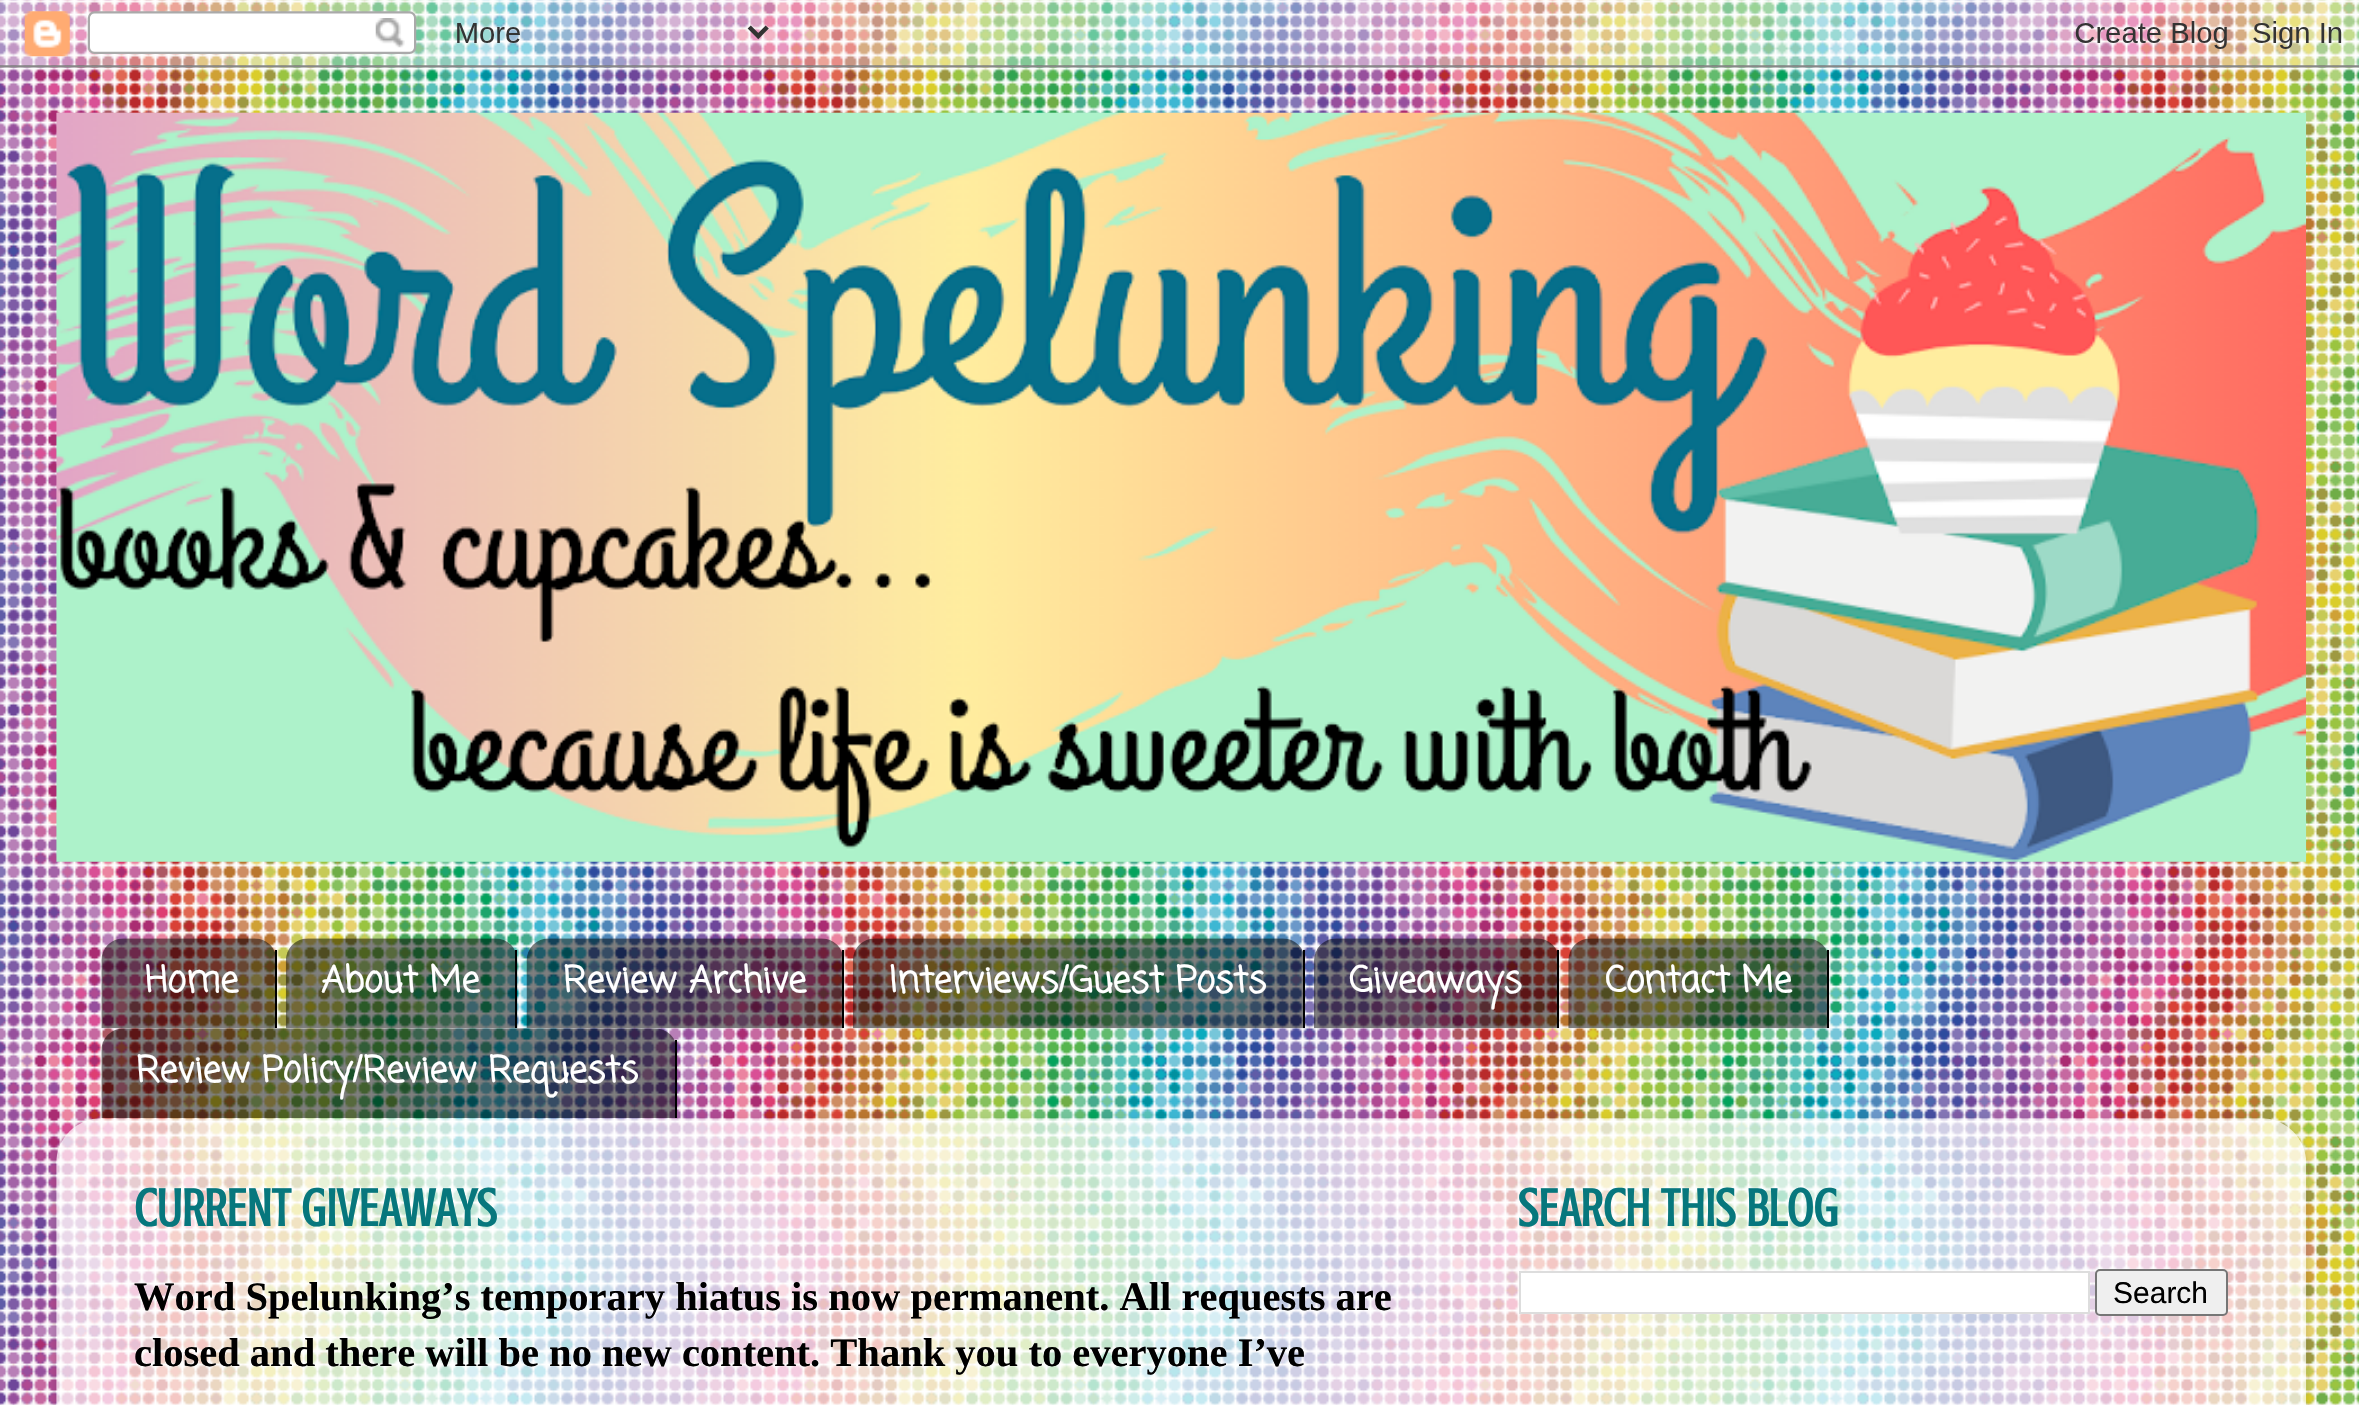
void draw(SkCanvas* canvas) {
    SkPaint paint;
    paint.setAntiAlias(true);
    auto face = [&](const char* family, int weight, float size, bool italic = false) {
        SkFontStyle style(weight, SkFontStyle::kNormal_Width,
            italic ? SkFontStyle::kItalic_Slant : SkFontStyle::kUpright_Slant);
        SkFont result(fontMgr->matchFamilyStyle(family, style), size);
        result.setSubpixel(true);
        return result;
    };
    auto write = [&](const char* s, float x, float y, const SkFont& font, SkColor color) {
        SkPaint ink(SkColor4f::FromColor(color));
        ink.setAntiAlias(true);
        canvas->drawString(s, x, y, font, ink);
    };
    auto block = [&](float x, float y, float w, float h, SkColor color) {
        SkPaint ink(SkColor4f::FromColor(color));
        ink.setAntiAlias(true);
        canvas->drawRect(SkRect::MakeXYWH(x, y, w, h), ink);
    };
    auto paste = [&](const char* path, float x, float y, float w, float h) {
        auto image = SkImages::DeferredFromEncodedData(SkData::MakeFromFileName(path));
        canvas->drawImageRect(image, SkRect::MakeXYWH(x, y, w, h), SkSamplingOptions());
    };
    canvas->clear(SK_ColorWHITE);
    paste("pic1.png", 0, 0, 2359, 1405);
    paste("pic2.png", 0, 0, 2359, 68);
    paste("pic3.png", 56, 112, 2251, 750);
    paste("pic4.png", 101, 938, 175, 91);
    block(275, 950, 2, 78, SK_ColorBLACK);
    auto kFont1 = face("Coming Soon", 700, 36);
    write("Home", 145, 992, kFont1, SK_ColorWHITE);
    paste("pic5.png", 285, 938, 233, 91);
    block(515, 950, 2, 78, SK_ColorBLACK);
    write("About Me", 321, 992, kFont1, SK_ColorWHITE);
    paste("pic6.png", 526, 938, 317, 91);
    block(842, 950, 2, 78, SK_ColorBLACK);
    write("Review Archive", 563, 992, kFont1, SK_ColorWHITE);
    paste("pic7.png", 852, 938, 453, 91);
    block(1303, 950, 2, 78, SK_ColorBLACK);
    write("Interviews/Guest Posts", 889, 992, kFont1, SK_ColorWHITE);
    paste("pic8.png", 1314, 938, 246, 91);
    block(1557, 950, 2, 78, SK_ColorBLACK);
    write("Giveaways", 1349, 992, kFont1, SK_ColorWHITE);
    paste("pic9.png", 1568, 938, 262, 91);
    block(1827, 950, 2, 78, SK_ColorBLACK);
    write("Contact Me", 1605, 992, kFont1, SK_ColorWHITE);
    paste("pic10.png", 101, 1028, 577, 90);
    block(675, 1040, 2, 78, SK_ColorBLACK);
    write("Review Policy/Review Requests", 136, 1082, kFont1, SK_ColorWHITE);
    canvas->save();
    canvas->clipPath(SkPathBuilder(SkPathFillType::kEvenOdd).moveTo(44, 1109).lineTo(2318, 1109).lineTo(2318, 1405).lineTo(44, 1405).close().moveTo(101, 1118).lineTo(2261, 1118).cubicTo(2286, 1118, 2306, 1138, 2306, 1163).lineTo(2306, 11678).lineTo(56, 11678).lineTo(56, 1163).cubicTo(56, 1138, 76, 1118, 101, 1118).close().detach(), true);
    paint.setColor(SkColorSetARGB(38, 0, 0, 0));
    paint.setMaskFilter(SkMaskFilter::MakeBlur(kNormal_SkBlurStyle, 3.5f));
    canvas->drawRoundRect(SkRect::MakeXYWH(56, 1121, 2250, 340), 45, 45, paint);
    paint.setMaskFilter(nullptr);
    canvas->restore();
    paste("pic11.png", 56, 1118, 2251, 287);
    auto kFont2 = face("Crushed", 700, 54);
    write("CURRENT GIVEAWAYS", 134, 1226, kFont2, SkColorSetRGB(7, 119, 125));
    auto kFont3 = face("Liberation Serif", 700, 40.5f);
    write("Word Spelunking’s temporary hiatus is now permanent. All requests are", 134, 1310, kFont3, SK_ColorBLACK);
    write("closed and there will be no new content. Thank you to everyone I’ve", 134, 1366, kFont3, SK_ColorBLACK);
    write("SEARCH THIS BLOG", 1518, 1226, kFont2, SkColorSetRGB(7, 119, 125));
    paint.setColor(SK_ColorWHITE);
    canvas->drawRect(SkRect::MakeXYWH(1520, 1272, 569, 41), paint);
    paint.setStyle(SkPaint::kStroke_Style);
    paint.setStrokeWidth(2);
    paint.setColor(SkColorSetRGB(221, 221, 221));
    canvas->drawRect(SkRect::MakeXYWH(1520, 1272, 569, 41), paint);
    paint.setStyle(SkPaint::kFill_Style);
    paint.setColor(SkColorSetRGB(239, 239, 239));
    canvas->drawRoundRect(SkRect::MakeXYWH(2096, 1270, 131, 45), 4, 4, paint);
    paint.setStyle(SkPaint::kStroke_Style);
    paint.setColor(SkColorSetRGB(118, 118, 118));
    canvas->drawRoundRect(SkRect::MakeXYWH(2096, 1270, 131, 45), 4, 4, paint);
    auto kFont4 = face("Liberation Sans", 400, 30);
    write("Search", 2113, 1303, kFont4, SK_ColorBLACK);
}
